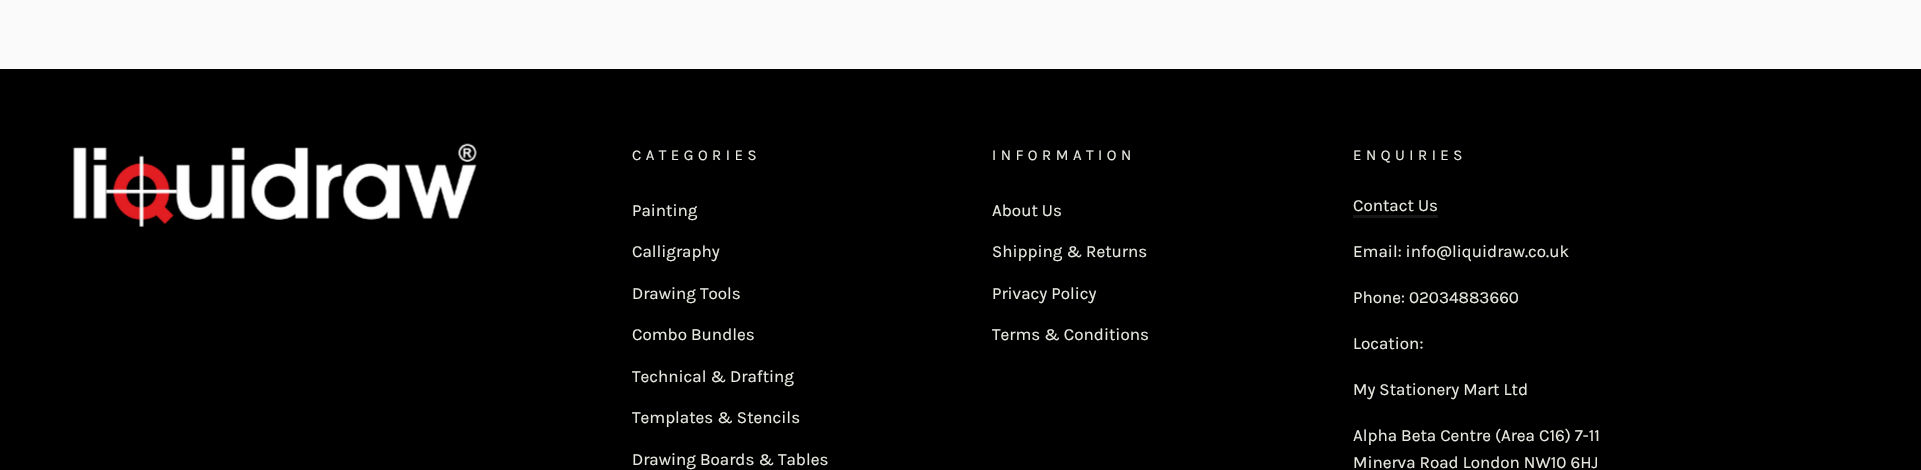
void draw(SkCanvas* canvas) {
    SkPaint paint;
    paint.setAntiAlias(true);
    auto face = [&](const char* family, int weight, float size, bool italic = false) {
        SkFontStyle style(weight, SkFontStyle::kNormal_Width,
            italic ? SkFontStyle::kItalic_Slant : SkFontStyle::kUpright_Slant);
        SkFont result(fontMgr->matchFamilyStyle(family, style), size);
        result.setSubpixel(true);
        return result;
    };
    auto write = [&](const char* s, float x, float y, const SkFont& font, SkColor color) {
        SkPaint ink(SkColor4f::FromColor(color));
        ink.setAntiAlias(true);
        canvas->drawString(s, x, y, font, ink);
    };
    auto writeSpaced = [&](const char* s, float x, float y, const SkFont& font, const SkPaint& ink, float letter, float word) {
        std::vector<SkGlyphID> glyphs(font.countText(s, strlen(s), SkTextEncoding::kUTF8));
        std::vector<float> xs(glyphs.size());
        font.textToGlyphs(s, strlen(s), SkTextEncoding::kUTF8, glyphs);
        font.getXPos(glyphs, xs, x);
        float extra = 0;
        for (size_t i = 0; i < glyphs.size(); i++) {
            xs[i] += extra;
            extra += letter + word * (glyphs[i] == font.unicharToGlyph(' '));
        }
        canvas->drawTextBlob(SkTextBlob::MakeFromPosHGlyphs(glyphs, xs, y, font), 0, 0, ink);
    };
    auto block = [&](float x, float y, float w, float h, SkColor color) {
        SkPaint ink(SkColor4f::FromColor(color));
        ink.setAntiAlias(true);
        canvas->drawRect(SkRect::MakeXYWH(x, y, w, h), ink);
    };
    auto paste = [&](const char* path, float x, float y, float w, float h) {
        auto image = SkImages::DeferredFromEncodedData(SkData::MakeFromFileName(path));
        canvas->drawImageRect(image, SkRect::MakeXYWH(x, y, w, h), SkSamplingOptions());
    };
    canvas->clear(SkColorSetRGB(250, 250, 250));
    block(0, 69, 1921, 401, SK_ColorBLACK);
    paste("pic1.png", 73, 143, 404, 84);
    auto kFont1 = face("Karla", 400, 15);
    paint.setColor(SkColorSetRGB(232, 232, 225));
    writeSpaced("CATEGORIES", 632, 160, kFont1, paint, 4.5f, 0);
    auto kFont2 = face("Karla", 400, 17);
    write("Painting", 632, 216, kFont2, SkColorSetRGB(232, 232, 225));
    write("Calligraphy", 632, 257, kFont2, SkColorSetRGB(232, 232, 225));
    write("Drawing Tools", 632, 299, kFont2, SkColorSetRGB(232, 232, 225));
    write("Combo Bundles", 632, 340, kFont2, SkColorSetRGB(232, 232, 225));
    write("Technical & Drafting", 632, 382, kFont2, SkColorSetRGB(232, 232, 225));
    write("Templates & Stencils", 632, 423, kFont2, SkColorSetRGB(232, 232, 225));
    write("Drawing Boards & Tables", 632, 465, kFont2, SkColorSetRGB(232, 232, 225));
    writeSpaced("INFORMATION", 992, 160, kFont1, paint, 4.5f, 0);
    write("About Us", 992, 216, kFont2, SkColorSetRGB(232, 232, 225));
    write("Shipping & Returns", 992, 257, kFont2, SkColorSetRGB(232, 232, 225));
    write("Privacy Policy", 992, 299, kFont2, SkColorSetRGB(232, 232, 225));
    write("Terms & Conditions", 992, 340, kFont2, SkColorSetRGB(232, 232, 225));
    writeSpaced("ENQUIRIES", 1353, 160, kFont1, paint, 4.5f, 0);
    write("Contact Us", 1353, 211, kFont2, SkColorSetRGB(232, 232, 225));
    block(1353, 215, 85, 3, SkColorSetRGB(23, 23, 23));
    write("Email: info@liquidraw.co.uk", 1353, 257, kFont2, SkColorSetRGB(232, 232, 225));
    write("Phone: 02034883660", 1353, 303, kFont2, SkColorSetRGB(232, 232, 225));
    write("Location:", 1353, 349, kFont2, SkColorSetRGB(232, 232, 225));
    write("My Stationery Mart Ltd", 1353, 395, kFont2, SkColorSetRGB(232, 232, 225));
    write("Alpha Beta Centre (Area C16) 7-11", 1353, 441, kFont2, SkColorSetRGB(232, 232, 225));
    write("Minerva Road London NW10 6HJ", 1353, 468, kFont2, SkColorSetRGB(232, 232, 225));
}
